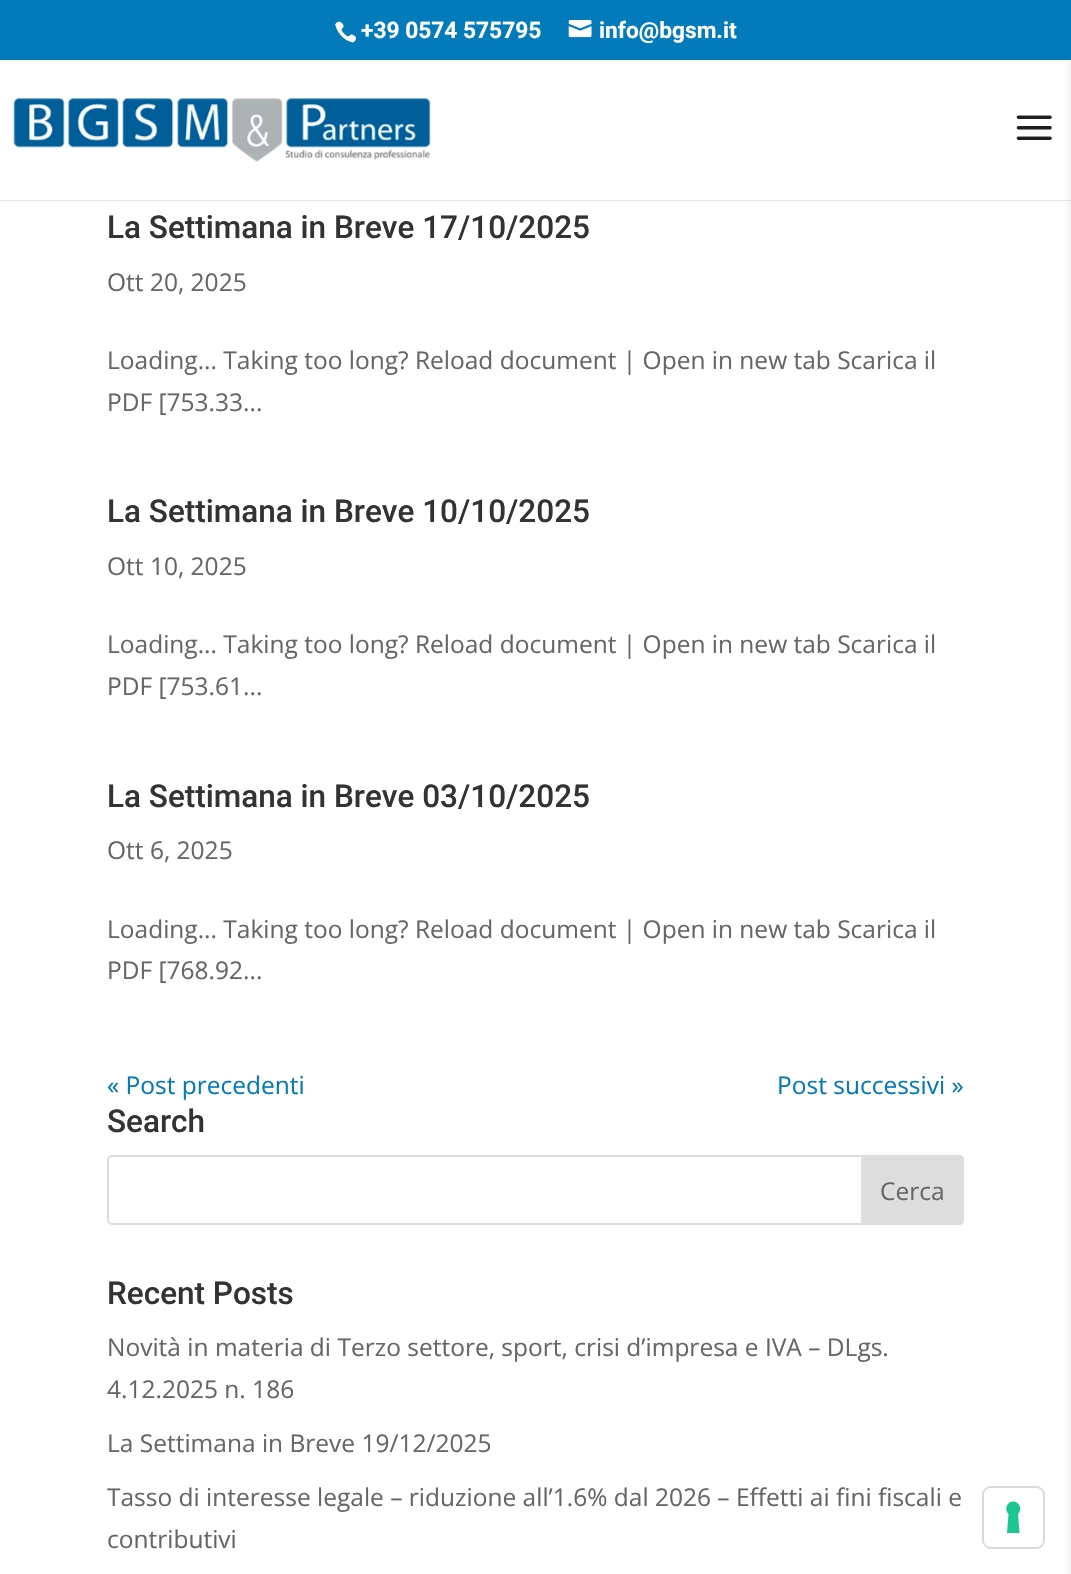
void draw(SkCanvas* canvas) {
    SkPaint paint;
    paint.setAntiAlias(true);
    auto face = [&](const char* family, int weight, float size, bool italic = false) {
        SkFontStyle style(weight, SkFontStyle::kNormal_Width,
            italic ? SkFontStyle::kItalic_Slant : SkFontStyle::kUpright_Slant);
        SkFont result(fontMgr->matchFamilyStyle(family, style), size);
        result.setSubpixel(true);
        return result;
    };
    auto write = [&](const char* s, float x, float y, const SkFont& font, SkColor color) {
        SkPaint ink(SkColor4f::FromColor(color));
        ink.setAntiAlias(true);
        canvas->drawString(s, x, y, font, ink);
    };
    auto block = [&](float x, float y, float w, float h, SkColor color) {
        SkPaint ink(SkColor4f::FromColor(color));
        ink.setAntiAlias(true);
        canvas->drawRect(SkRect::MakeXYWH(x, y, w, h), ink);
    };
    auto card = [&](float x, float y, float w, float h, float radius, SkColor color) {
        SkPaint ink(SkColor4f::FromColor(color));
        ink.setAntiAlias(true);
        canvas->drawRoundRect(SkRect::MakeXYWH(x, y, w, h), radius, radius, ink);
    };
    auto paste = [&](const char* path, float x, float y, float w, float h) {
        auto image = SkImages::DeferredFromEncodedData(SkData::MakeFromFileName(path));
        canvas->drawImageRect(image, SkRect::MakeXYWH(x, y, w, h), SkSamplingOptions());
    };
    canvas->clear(SK_ColorWHITE);
    block(0, 200, 1071, 1, SkColorSetRGB(230, 230, 230));
    paste("pic1.png", 13, 98, 418, 64);
    paste("pic2.png", 1016, 115, 36, 25);
    paint.setColor(SkColorSetARGB(26, 0, 0, 0));
    paint.setMaskFilter(SkMaskFilter::MakeBlur(kNormal_SkBlurStyle, 4.5f));
    canvas->drawRect(SkRect::MakeXYWH(1071, 4, 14, 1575), paint);
    paint.setMaskFilter(nullptr);
    block(0, 0, 1071, 60, SkColorSetRGB(3, 122, 186));
    paste("pic3.png", 335, 21, 21, 22);
    auto kFont1 = face("Roboto", 700, 22.75f);
    write("+39 0574 575795", 361, 38, kFont1, SK_ColorWHITE);
    paste("pic4.png", 568, 20, 24, 18);
    write("info@bgsm.it", 599, 38, kFont1, SK_ColorWHITE);
    auto kFont2 = face("Roboto", 500, 31.5f);
    write("La Settimana in Breve 17/10/2025", 107, 238, kFont2, SkColorSetRGB(51, 51, 51));
    auto kFont3 = face("Open Sans", 400, 24.5f);
    write("Ott 20, 2025", 107, 291, kFont3, SkColorSetRGB(102, 102, 102));
    write("Loading... Taking too long? Reload document | Open in new tab Scarica il", 107, 369, kFont3, SkColorSetRGB(102, 102, 102));
    write("PDF [753.33...", 107, 411, kFont3, SkColorSetRGB(102, 102, 102));
    write("La Settimana in Breve 10/10/2025", 107, 522, kFont2, SkColorSetRGB(51, 51, 51));
    write("Ott 10, 2025", 107, 575, kFont3, SkColorSetRGB(102, 102, 102));
    write("Loading... Taking too long? Reload document | Open in new tab Scarica il", 107, 653, kFont3, SkColorSetRGB(102, 102, 102));
    write("PDF [753.61...", 107, 695, kFont3, SkColorSetRGB(102, 102, 102));
    write("La Settimana in Breve 03/10/2025", 107, 807, kFont2, SkColorSetRGB(51, 51, 51));
    write("Ott 6, 2025", 107, 859, kFont3, SkColorSetRGB(102, 102, 102));
    write("Loading... Taking too long? Reload document | Open in new tab Scarica il", 107, 938, kFont3, SkColorSetRGB(102, 102, 102));
    write("PDF [768.92...", 107, 979, kFont3, SkColorSetRGB(102, 102, 102));
    write("« Post precedenti", 107, 1094, kFont3, SkColorSetRGB(3, 122, 186));
    write("Post successivi »", 777, 1094, kFont3, SkColorSetRGB(3, 122, 186));
    write("Search", 107, 1132, kFont2, SkColorSetRGB(51, 51, 51));
    paint.setStyle(SkPaint::kStroke_Style);
    paint.setStrokeWidth(2);
    paint.setColor(SkColorSetRGB(221, 221, 221));
    canvas->drawRoundRect(SkRect::MakeXYWH(108, 1156, 855, 68), 4, 4, paint);
    paint.setStyle(SkPaint::kFill_Style);
    canvas->drawPath(SkPathBuilder().moveTo(862, 1156).lineTo(959, 1156).cubicTo(961, 1156, 963, 1158, 963, 1160).lineTo(963, 1220).cubicTo(963, 1222, 961, 1224, 959, 1224).lineTo(862, 1224).close().detach(), paint);
    paint.setStyle(SkPaint::kStroke_Style);
    canvas->drawPath(SkPathBuilder().moveTo(862, 1156).lineTo(959, 1156).cubicTo(961, 1156, 963, 1158, 963, 1160).lineTo(963, 1220).cubicTo(963, 1222, 961, 1224, 959, 1224).lineTo(862, 1224).close().detach(), paint);
    write("Cerca", 880, 1200, kFont3, SkColorSetRGB(102, 102, 102));
    write("Recent Posts", 107, 1304, kFont2, SkColorSetRGB(51, 51, 51));
    write("Novità in materia di Terzo settore, sport, crisi d’impresa e IVA – DLgs.", 107, 1356, kFont3, SkColorSetRGB(102, 102, 102));
    write("4.12.2025 n. 186", 107, 1398, kFont3, SkColorSetRGB(102, 102, 102));
    write("La Settimana in Breve 19/12/2025", 107, 1452, kFont3, SkColorSetRGB(102, 102, 102));
    write("Tasso di interesse legale – riduzione all’1.6% dal 2026 – Effetti ai fini fiscali e", 107, 1506, kFont3, SkColorSetRGB(102, 102, 102));
    write("contributivi", 107, 1548, kFont3, SkColorSetRGB(102, 102, 102));
    paint.setColor(SkColorSetRGB(217, 217, 217));
    canvas->drawRoundRect(SkRect::MakeXYWH(983, 1487, 61, 61), 8, 8, paint);
    card(984, 1488, 59, 59, 7, SK_ColorWHITE);
    paint.setStyle(SkPaint::kFill_Style);
    paint.setColor(SkColorSetRGB(28, 198, 145));
    canvas->drawPath(SkPathBuilder(SkPathFillType::kEvenOdd).moveTo(1013, 1501.5f).cubicTo(1019.5f, 1501.5f, 1022.5f, 1509.5f, 1018, 1514).lineTo(1019.5f, 1533).lineTo(1007, 1533).lineTo(1008.5f, 1514).cubicTo(1004, 1509.5f, 1007, 1501.5f, 1013, 1501.5f).close().detach(), paint);
}
